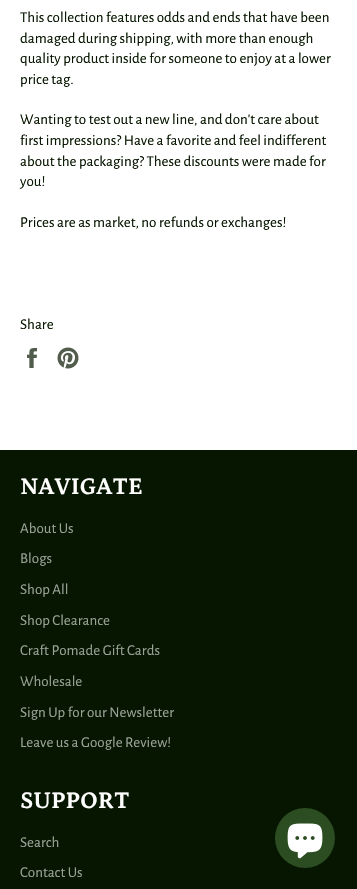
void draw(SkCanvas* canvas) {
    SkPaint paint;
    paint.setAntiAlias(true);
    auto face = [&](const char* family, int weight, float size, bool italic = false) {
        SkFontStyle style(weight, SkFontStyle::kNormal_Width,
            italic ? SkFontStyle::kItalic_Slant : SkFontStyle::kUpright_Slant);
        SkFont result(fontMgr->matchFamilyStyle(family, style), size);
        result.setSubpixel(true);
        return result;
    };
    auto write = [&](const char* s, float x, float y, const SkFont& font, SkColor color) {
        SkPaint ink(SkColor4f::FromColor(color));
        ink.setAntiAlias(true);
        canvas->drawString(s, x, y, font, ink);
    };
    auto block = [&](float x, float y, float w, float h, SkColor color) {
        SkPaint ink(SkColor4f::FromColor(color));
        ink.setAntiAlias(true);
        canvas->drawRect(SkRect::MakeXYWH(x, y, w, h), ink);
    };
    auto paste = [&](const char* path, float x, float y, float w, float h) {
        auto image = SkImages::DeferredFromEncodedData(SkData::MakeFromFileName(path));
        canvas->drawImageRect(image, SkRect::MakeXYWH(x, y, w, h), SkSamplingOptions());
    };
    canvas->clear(SK_ColorWHITE);
    auto kFont1 = face("Alegreya Sans", 400, 15);
    write("This collection features odds and ends that have been", 20, 22, kFont1, SkColorSetRGB(6, 22, 0));
    write("damaged during shipping, with more than enough", 20, 43, kFont1, SkColorSetRGB(6, 22, 0));
    write("quality product inside for someone to enjoy at a lower", 20, 63, kFont1, SkColorSetRGB(6, 22, 0));
    write("price tag.", 20, 84, kFont1, SkColorSetRGB(6, 22, 0));
    write("Wanting to test out a new line, and don't care about", 20, 124, kFont1, SkColorSetRGB(6, 22, 0));
    write("first impressions? Have a favorite and feel indifferent", 20, 145, kFont1, SkColorSetRGB(6, 22, 0));
    write("about the packaging? These discounts were made for", 20, 166, kFont1, SkColorSetRGB(6, 22, 0));
    write("you!", 20, 186, kFont1, SkColorSetRGB(6, 22, 0));
    write("Prices are as market, no refunds or exchanges!", 20, 227, kFont1, SkColorSetRGB(6, 22, 0));
    write("Share", 20, 329, kFont1, SkColorSetRGB(6, 22, 0));
    paste("pic1.png", 27, 348, 10, 20);
    paste("pic2.png", 57, 347, 22, 22);
    block(0, 450, 357, 439, SkColorSetRGB(6, 22, 0));
    auto kFont2 = face("Petrona", 700, 24);
    write("NAVIGATE", 20, 494, kFont2, SK_ColorWHITE);
    write("About Us", 20, 533, kFont1, SkColorSetRGB(155, 162, 153));
    write("Blogs", 20, 563, kFont1, SkColorSetRGB(155, 162, 153));
    write("Shop All", 20, 594, kFont1, SkColorSetRGB(155, 162, 153));
    write("Shop Clearance", 20, 625, kFont1, SkColorSetRGB(155, 162, 153));
    write("Craft Pomade Gift Cards", 20, 655, kFont1, SkColorSetRGB(155, 162, 153));
    write("Wholesale", 20, 686, kFont1, SkColorSetRGB(155, 162, 153));
    write("Sign Up for our Newsletter", 20, 717, kFont1, SkColorSetRGB(155, 162, 153));
    write("Leave us a Google Review!", 20, 747, kFont1, SkColorSetRGB(155, 162, 153));
    write("SUPPORT", 20, 808, kFont2, SK_ColorWHITE);
    write("Search", 20, 847, kFont1, SkColorSetRGB(155, 162, 153));
    write("Contact Us", 20, 877, kFont1, SkColorSetRGB(155, 162, 153));
    paint.setColor(SkColorSetRGB(44, 76, 33));
    canvas->drawCircle(305, 838, 30, paint);
    paste("pic3.png", 287, 823, 36, 36);
}
